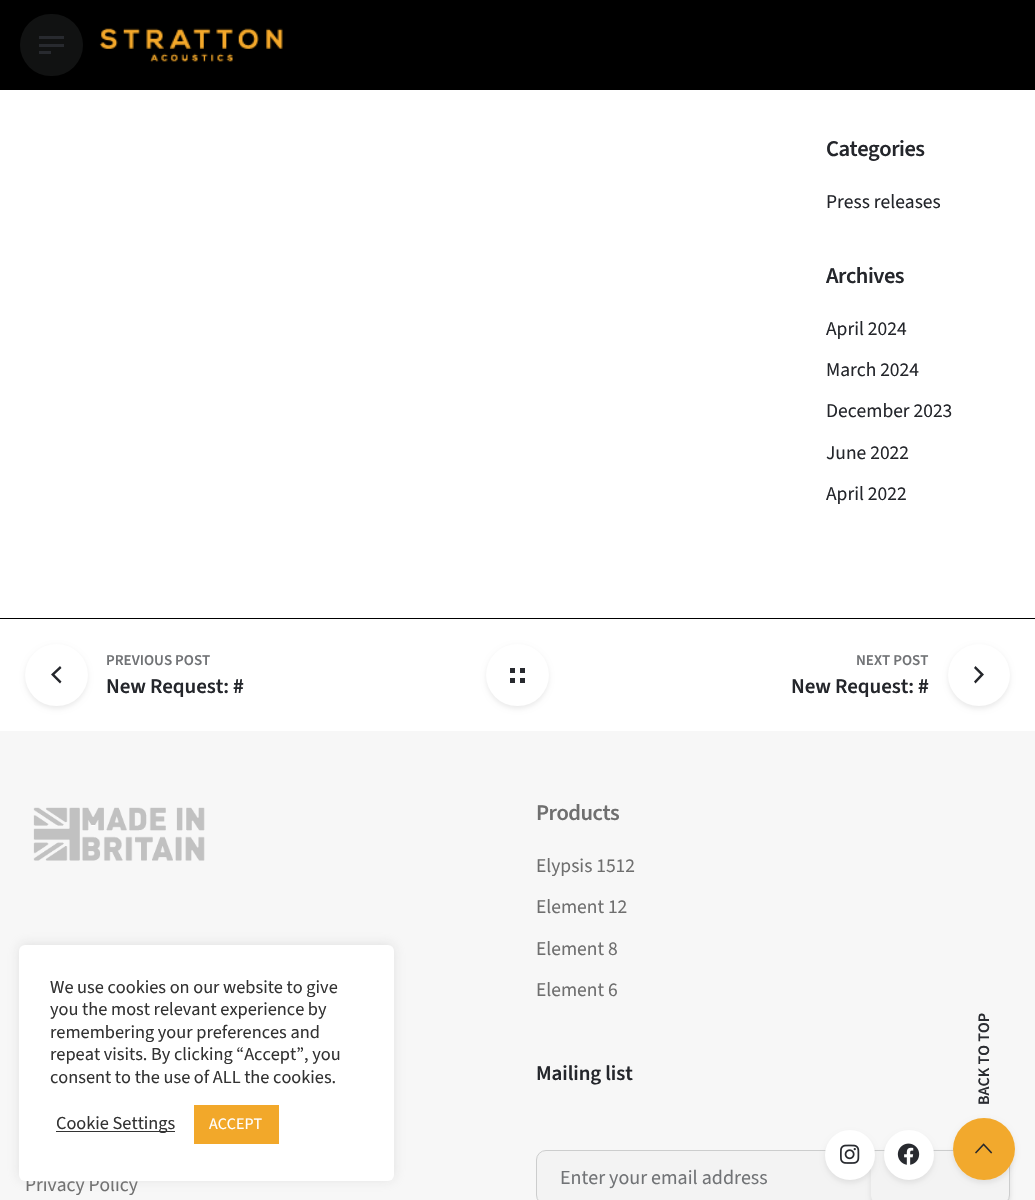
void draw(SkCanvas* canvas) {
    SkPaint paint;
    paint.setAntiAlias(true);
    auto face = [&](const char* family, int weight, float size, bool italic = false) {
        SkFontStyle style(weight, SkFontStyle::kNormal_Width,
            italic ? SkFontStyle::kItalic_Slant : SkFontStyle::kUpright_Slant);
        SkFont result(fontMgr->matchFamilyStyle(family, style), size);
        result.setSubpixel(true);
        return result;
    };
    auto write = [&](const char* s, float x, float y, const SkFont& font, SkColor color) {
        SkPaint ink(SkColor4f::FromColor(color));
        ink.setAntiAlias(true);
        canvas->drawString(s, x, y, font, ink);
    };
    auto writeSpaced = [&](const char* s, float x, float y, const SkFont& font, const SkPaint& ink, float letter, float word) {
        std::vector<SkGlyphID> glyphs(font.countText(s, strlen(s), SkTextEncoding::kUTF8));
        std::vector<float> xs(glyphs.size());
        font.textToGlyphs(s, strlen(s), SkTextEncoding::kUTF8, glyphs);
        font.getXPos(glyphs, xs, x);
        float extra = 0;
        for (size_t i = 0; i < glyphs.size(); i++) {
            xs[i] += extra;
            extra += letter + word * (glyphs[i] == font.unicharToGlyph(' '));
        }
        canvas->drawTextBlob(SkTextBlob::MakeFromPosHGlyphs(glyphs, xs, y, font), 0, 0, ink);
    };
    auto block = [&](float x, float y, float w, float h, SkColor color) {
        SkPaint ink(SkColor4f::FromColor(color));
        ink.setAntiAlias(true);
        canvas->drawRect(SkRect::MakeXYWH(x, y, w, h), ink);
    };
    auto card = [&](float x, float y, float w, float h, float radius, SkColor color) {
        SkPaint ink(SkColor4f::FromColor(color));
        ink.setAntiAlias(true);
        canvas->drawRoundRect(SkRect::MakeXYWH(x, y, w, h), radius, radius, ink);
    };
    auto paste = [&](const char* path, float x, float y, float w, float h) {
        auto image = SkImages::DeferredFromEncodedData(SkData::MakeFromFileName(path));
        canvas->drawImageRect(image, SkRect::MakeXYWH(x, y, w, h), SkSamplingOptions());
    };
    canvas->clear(SK_ColorWHITE);
    block(0, 0, 1035, 90, SK_ColorBLACK);
    card(20, 14, 63, 62, 31, SkColorSetRGB(17, 18, 18));
    block(39, 36, 25, 3, SkColorSetRGB(40, 42, 47));
    block(39, 44, 25, 3, SkColorSetRGB(40, 42, 47));
    block(39, 51, 12, 3, SkColorSetRGB(40, 42, 47));
    paste("pic1.png", 99, 28, 184, 34);
    auto kFont1 = face("Source Sans 3", 600, 22.5f);
    paint.setColor(SkColorSetRGB(36, 38, 43));
    writeSpaced("Categories", 826, 156, kFont1, paint, -0.5f, 0);
    auto kFont2 = face("Source Sans 3", 400, 19.5f);
    write("Press releases", 826, 208, kFont2, SkColorSetRGB(36, 38, 43));
    writeSpaced("Archives", 826, 283, kFont1, paint, -0.5f, 0);
    write("April 2024", 826, 335, kFont2, SkColorSetRGB(36, 38, 43));
    write("March 2024", 826, 376, kFont2, SkColorSetRGB(36, 38, 43));
    write("December 2023", 826, 417, kFont2, SkColorSetRGB(36, 38, 43));
    write("June 2022", 826, 459, kFont2, SkColorSetRGB(36, 38, 43));
    write("April 2022", 826, 500, kFont2, SkColorSetRGB(36, 38, 43));
    block(0, 618, 1035, 1, SK_ColorBLACK);
    paint.setColor(SkColorSetARGB(20, 0, 0, 0));
    paint.setMaskFilter(SkMaskFilter::MakeBlur(kNormal_SkBlurStyle, 2.5f));
    canvas->drawRoundRect(SkRect::MakeXYWH(25, 646, 63, 63), 31.5f, 31.5f, paint);
    paint.setMaskFilter(nullptr);
    card(25, 644, 63, 62, 31, SK_ColorWHITE);
    paint.setColor(SkColorSetRGB(36, 38, 43));
    canvas->drawPath(SkPathBuilder().moveTo(61.5f, 668).lineTo(54.5f, 674.5f).lineTo(61.5f, 681.5f).lineTo(60, 683.5f).lineTo(51, 674.5f).lineTo(60, 666).close().detach(), paint);
    auto kFont3 = face("Source Sans 3", 600, 15);
    write("PREVIOUS POST", 106, 665, kFont3, SkColorSetRGB(113, 115, 118));
    auto kFont4 = face("Source Sans 3", 600, 21);
    writeSpaced("New Request: #", 106, 693, kFont4, paint, -0.1f, 0);
    paint.setColor(SkColorSetARGB(20, 0, 0, 0));
    paint.setMaskFilter(SkMaskFilter::MakeBlur(kNormal_SkBlurStyle, 2.5f));
    canvas->drawRoundRect(SkRect::MakeXYWH(486, 646, 63, 63), 31.5f, 31.5f, paint);
    paint.setMaskFilter(nullptr);
    card(486, 644, 63, 62, 31, SK_ColorWHITE);
    {
        const SkColor colors[] = {SK_ColorWHITE, SK_ColorWHITE, SkColorSetRGB(40, 42, 47), SkColorSetRGB(40, 42, 47), SK_ColorWHITE, SK_ColorWHITE, SkColorSetRGB(40, 42, 47), SkColorSetRGB(40, 42, 47)};
        const float stops[] = {0, 0.25f, 0.25f, 0.5f, 0.5f, 0.75f, 0.75f, 1};
        const SkPoint ends[] = {{505, 670}, {525, 670}};
        paint.setShader(SkGradientShader::MakeLinear(ends, colors, stops, 8, SkTileMode::kClamp));
        paint.setAlpha(255);
    }
    canvas->drawRect(SkRect::MakeXYWH(505, 668, 20, 5), paint);
    {
        const SkColor colors[] = {SK_ColorWHITE, SK_ColorWHITE, SkColorSetRGB(40, 42, 47), SkColorSetRGB(40, 42, 47), SK_ColorWHITE, SK_ColorWHITE, SkColorSetRGB(40, 42, 47), SkColorSetRGB(40, 42, 47)};
        const float stops[] = {0, 0.25f, 0.25f, 0.5f, 0.5f, 0.75f, 0.75f, 1};
        const SkPoint ends[] = {{505, 680}, {525, 680}};
        paint.setShader(SkGradientShader::MakeLinear(ends, colors, stops, 8, SkTileMode::kClamp));
        paint.setAlpha(255);
    }
    canvas->drawRect(SkRect::MakeXYWH(505, 678, 20, 5), paint);
    write("NEXT POST", 856, 665, kFont3, SkColorSetRGB(113, 115, 118));
    paint.setShader(nullptr);
    paint.setColor(SkColorSetRGB(36, 38, 43));
    writeSpaced("New Request: #", 791, 693, kFont4, paint, -0.1f, 0);
    paint.setColor(SkColorSetARGB(20, 0, 0, 0));
    paint.setMaskFilter(SkMaskFilter::MakeBlur(kNormal_SkBlurStyle, 2.5f));
    canvas->drawRoundRect(SkRect::MakeXYWH(948, 646, 62, 63), 31, 31, paint);
    paint.setMaskFilter(nullptr);
    paint.setColor(SK_ColorWHITE);
    canvas->drawCircle(979, 675, 31, paint);
    paint.setColor(SkColorSetRGB(36, 38, 43));
    canvas->drawPath(SkPathBuilder().moveTo(974, 668).lineTo(975.5f, 666).lineTo(984, 674.5f).lineTo(975.5f, 683.5f).lineTo(974, 681.5f).lineTo(980.5f, 674.5f).close().detach(), paint);
    block(0, 731, 1035, 469, SkColorSetRGB(247, 247, 247));
    paste("pic2.png", 33, 807, 172, 54);
    paint.setColor(SkColorSetRGB(111, 111, 111));
    writeSpaced("Products", 536, 820, kFont1, paint, -0.5f, 0);
    write("Elypsis 1512", 536, 872, kFont2, SkColorSetRGB(111, 111, 111));
    write("Element 12", 536, 913, kFont2, SkColorSetRGB(111, 111, 111));
    write("Element 8", 536, 955, kFont2, SkColorSetRGB(111, 111, 111));
    write("Element 6", 536, 996, kFont2, SkColorSetRGB(111, 111, 111));
    write("Privacy Policy", 25, 1191, kFont2, SkColorSetRGB(111, 111, 111));
    paint.setColor(SkColorSetRGB(36, 38, 43));
    writeSpaced("Mailing list", 536, 1080, kFont4, paint, -0.1f, 0);
    paint.setColor(SkColorSetRGB(243, 243, 243));
    canvas->drawRoundRect(SkRect::MakeXYWH(536.5f, 1150.5f, 473, 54), 9.5f, 9.5f, paint);
    paint.setStyle(SkPaint::kStroke_Style);
    paint.setStrokeWidth(1);
    paint.setColor(SkColorSetRGB(204, 205, 205));
    canvas->drawRoundRect(SkRect::MakeXYWH(536.5f, 1150.5f, 473, 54), 9.5f, 9.5f, paint);
    auto kFont5 = face("Source Sans 3", 400, 20);
    write("Enter your email address", 560, 1184, kFont5, SkColorSetRGB(113, 115, 118));
    canvas->save();
    canvas->clipPath(SkPathBuilder(SkPathFillType::kEvenOdd).moveTo(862, 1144).lineTo(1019, 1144).lineTo(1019, 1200).lineTo(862, 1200).close().moveTo(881, 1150).lineTo(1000, 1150).cubicTo(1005.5f, 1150, 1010, 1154.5f, 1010, 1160).lineTo(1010, 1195).cubicTo(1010, 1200.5f, 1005.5f, 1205, 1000, 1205).lineTo(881, 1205).cubicTo(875.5f, 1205, 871, 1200.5f, 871, 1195).lineTo(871, 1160).cubicTo(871, 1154.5f, 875.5f, 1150, 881, 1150).close().detach(), true);
    paint.setStyle(SkPaint::kFill_Style);
    paint.setColor(SkColorSetARGB(26, 0, 0, 0));
    paint.setMaskFilter(SkMaskFilter::MakeBlur(kNormal_SkBlurStyle, 2.5f));
    canvas->drawRoundRect(SkRect::MakeXYWH(871, 1153, 139, 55), 10, 10, paint);
    paint.setMaskFilter(nullptr);
    canvas->restore();
    paint.setColor(SkColorSetARGB(77, 172, 171, 171));
    paint.setMaskFilter(SkMaskFilter::MakeBlur(kNormal_SkBlurStyle, 6));
    canvas->drawRoundRect(SkRect::MakeXYWH(19, 944, 375, 236), 6, 6, paint);
    paint.setMaskFilter(nullptr);
    card(19, 945, 375, 236, 6, SK_ColorWHITE);
    auto kFont6 = face("Source Sans 3", 400, 18.3f);
    write("We use cookies on our website to give", 50, 993, kFont6, SkColorSetRGB(51, 51, 51));
    write("you the most relevant experience by", 50, 1015, kFont6, SkColorSetRGB(51, 51, 51));
    write("remembering your preferences and", 50, 1038, kFont6, SkColorSetRGB(51, 51, 51));
    write("repeat visits. By clicking “Accept”, you", 50, 1060, kFont6, SkColorSetRGB(51, 51, 51));
    write("consent to the use of ALL the cookies.", 50, 1083, kFont6, SkColorSetRGB(51, 51, 51));
    block(56, 1131, 119, 1, SkColorSetRGB(51, 51, 51));
    write("Cookie Settings", 56, 1129, kFont6, SkColorSetRGB(51, 51, 51));
    block(194, 1105, 85, 39, SkColorSetRGB(242, 168, 42));
    auto kFont7 = face("Source Sans 3", 400, 16);
    write("ACCEPT", 209, 1129, kFont7, SK_ColorWHITE);
    auto kFont8 = face("Source Sans 3", 600, 16);
    canvas->save();
    canvas->rotate(-90, 989, 1105);
    write("BACK TO TOP", 989, 1105, kFont8, SkColorSetRGB(42, 44, 49));
    canvas->restore();
    canvas->save();
    canvas->clipPath(SkPathBuilder(SkPathFillType::kEvenOdd).moveTo(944, 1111).lineTo(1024, 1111).lineTo(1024, 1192).lineTo(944, 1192).close().moveTo(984, 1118).cubicTo(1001, 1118, 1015, 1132, 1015, 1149).cubicTo(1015, 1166, 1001, 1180, 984, 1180).cubicTo(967, 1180, 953, 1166, 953, 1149).cubicTo(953, 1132, 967, 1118, 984, 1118).close().detach(), true);
    paint.setColor(SkColorSetARGB(20, 0, 0, 0));
    paint.setMaskFilter(SkMaskFilter::MakeBlur(kNormal_SkBlurStyle, 2.5f));
    canvas->drawRoundRect(SkRect::MakeXYWH(953, 1120, 62, 63), 31, 31, paint);
    paint.setMaskFilter(nullptr);
    canvas->restore();
    paint.setColor(SkColorSetARGB(252, 242, 168, 42));
    canvas->drawCircle(984, 1149, 31, paint);
    paste("pic3.png", 975, 1143, 18, 11);
    paint.setColor(SkColorSetARGB(20, 0, 0, 0));
    paint.setMaskFilter(SkMaskFilter::MakeBlur(kNormal_SkBlurStyle, 2.5f));
    canvas->drawRoundRect(SkRect::MakeXYWH(825, 1133, 50, 50), 25, 25, paint);
    paint.setMaskFilter(nullptr);
    paint.setColor(SK_ColorWHITE);
    canvas->drawCircle(850, 1155, 23.5f, paint);
    paint.setStyle(SkPaint::kStroke_Style);
    paint.setStrokeWidth(3);
    canvas->drawCircle(850, 1155, 23.5f, paint);
    paste("pic4.png", 840, 1144, 20, 20);
    paint.setStyle(SkPaint::kFill_Style);
    paint.setColor(SkColorSetARGB(20, 0, 0, 0));
    paint.setMaskFilter(SkMaskFilter::MakeBlur(kNormal_SkBlurStyle, 2.5f));
    canvas->drawRoundRect(SkRect::MakeXYWH(884, 1133, 50, 50), 25, 25, paint);
    paint.setMaskFilter(nullptr);
    paint.setColor(SK_ColorWHITE);
    canvas->drawCircle(909, 1155, 23.5f, paint);
    paint.setStyle(SkPaint::kStroke_Style);
    canvas->drawCircle(909, 1155, 23.5f, paint);
    paste("pic5.png", 897, 1143, 23, 22);
}
